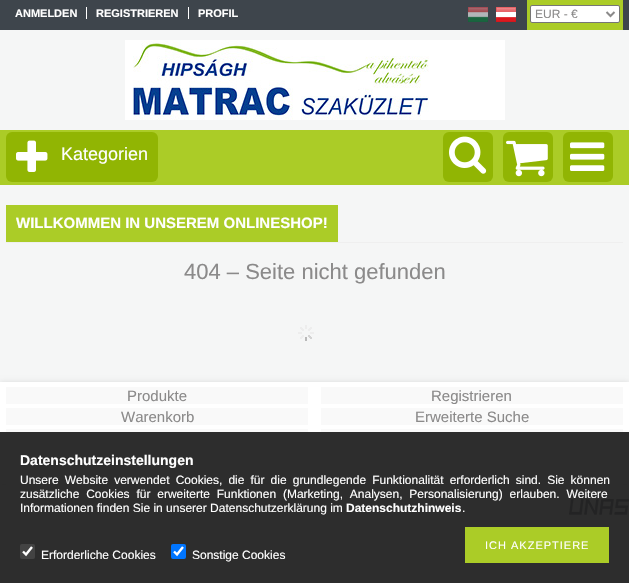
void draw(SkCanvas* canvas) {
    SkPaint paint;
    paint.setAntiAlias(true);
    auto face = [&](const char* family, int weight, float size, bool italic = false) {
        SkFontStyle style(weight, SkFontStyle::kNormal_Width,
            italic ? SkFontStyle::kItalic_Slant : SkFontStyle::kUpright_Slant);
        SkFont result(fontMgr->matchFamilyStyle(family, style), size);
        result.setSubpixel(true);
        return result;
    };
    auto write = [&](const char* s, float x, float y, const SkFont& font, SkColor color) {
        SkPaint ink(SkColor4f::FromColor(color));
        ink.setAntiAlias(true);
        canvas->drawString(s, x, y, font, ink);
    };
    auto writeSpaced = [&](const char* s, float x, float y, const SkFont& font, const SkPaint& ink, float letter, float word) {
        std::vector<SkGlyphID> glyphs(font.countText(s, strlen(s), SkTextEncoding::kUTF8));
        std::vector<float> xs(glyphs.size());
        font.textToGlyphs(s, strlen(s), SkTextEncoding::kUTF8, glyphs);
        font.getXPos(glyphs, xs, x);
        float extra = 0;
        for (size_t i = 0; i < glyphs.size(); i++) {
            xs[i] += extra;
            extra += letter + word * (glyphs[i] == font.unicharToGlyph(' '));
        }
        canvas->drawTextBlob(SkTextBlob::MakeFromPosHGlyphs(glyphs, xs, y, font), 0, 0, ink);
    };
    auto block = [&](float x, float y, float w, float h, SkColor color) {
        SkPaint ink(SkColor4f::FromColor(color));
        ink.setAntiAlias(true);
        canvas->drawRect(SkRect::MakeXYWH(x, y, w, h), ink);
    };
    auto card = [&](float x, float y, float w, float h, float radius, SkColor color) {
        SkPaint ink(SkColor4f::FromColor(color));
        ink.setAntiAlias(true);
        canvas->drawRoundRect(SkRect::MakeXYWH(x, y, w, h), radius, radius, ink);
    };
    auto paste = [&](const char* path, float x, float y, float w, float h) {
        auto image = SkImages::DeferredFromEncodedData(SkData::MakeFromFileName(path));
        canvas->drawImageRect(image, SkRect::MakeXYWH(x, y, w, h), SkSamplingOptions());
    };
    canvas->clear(SkColorSetRGB(245, 246, 246));
    block(0, 0, 629, 30, SkColorSetRGB(62, 69, 76));
    auto kFont1 = face("Liberation Sans", 700, 11);
    write("ANMELDEN", 15, 17, kFont1, SK_ColorWHITE);
    block(86, 7, 1, 12, SK_ColorWHITE);
    write("REGISTRIEREN", 96, 17, kFont1, SK_ColorWHITE);
    block(188, 7, 1, 12, SK_ColorWHITE);
    write("PROFIL", 198, 17, kFont1, SK_ColorWHITE);
    paste("pic1.png", 468, 7, 20, 15);
    paste("pic2.png", 496, 7, 20, 15);
    block(527, 0, 96, 30, SkColorSetRGB(171, 204, 39));
    paint.setColor(SK_ColorWHITE);
    canvas->drawRoundRect(SkRect::MakeXYWH(530.5f, 5.5f, 89, 17), 1.5f, 1.5f, paint);
    paint.setStyle(SkPaint::kStroke_Style);
    paint.setStrokeWidth(1);
    paint.setColor(SkColorSetRGB(118, 118, 118));
    canvas->drawRoundRect(SkRect::MakeXYWH(530.5f, 5.5f, 89, 17), 1.5f, 1.5f, paint);
    paint.setStrokeWidth(2);
    paint.setColor(SkColorSetRGB(139, 138, 138));
    canvas->drawPath(SkPathBuilder().moveTo(606.5f, 12).lineTo(610.5f, 16).lineTo(614.5f, 12).detach(), paint);
    auto kFont2 = face("Liberation Sans", 400, 12);
    write("EUR - €", 535, 18, kFont2, SkColorSetRGB(139, 138, 138));
    paste("pic3.png", 125, 40, 380, 80);
    block(0, 130, 629, 55, SkColorSetRGB(171, 204, 39));
    card(6, 132, 152, 50, 6, SkColorSetRGB(145, 181, 3));
    paste("pic4.png", 16, 140, 32, 32);
    auto kFont3 = face("Liberation Sans", 400, 18);
    write("Kategorien", 61, 160, kFont3, SK_ColorWHITE);
    card(443, 132, 50, 50, 6, SkColorSetRGB(145, 181, 3));
    paste("pic5.png", 449, 136, 38, 38);
    card(503, 132, 50, 50, 6, SkColorSetRGB(145, 181, 3));
    paste("pic6.png", 506, 140, 42, 37);
    card(563, 132, 50, 50, 6, SkColorSetRGB(145, 181, 3));
    paste("pic7.png", 570, 142, 35, 29);
    block(6, 242, 617, 1, SkColorSetRGB(239, 239, 239));
    block(6, 205, 332, 37, SkColorSetRGB(171, 204, 39));
    auto kFont4 = face("Liberation Sans", 700, 15);
    write("WILLKOMMEN IN UNSEREM ONLINESHOP!", 16, 228, kFont4, SK_ColorWHITE);
    auto kFont5 = face("Liberation Sans", 400, 22);
    write("404 – Seite nicht gefunden", 184, 279, kFont5, SkColorSetRGB(139, 138, 138));
    paste("pic8.png", 298, 325, 16, 16);
    paint.setStyle(SkPaint::kFill_Style);
    paint.setColor(SkColorSetARGB(26, 0, 0, 0));
    paint.setMaskFilter(SkMaskFilter::MakeBlur(kNormal_SkBlurStyle, 2.5f));
    canvas->drawRect(SkRect::MakeXYWH(0, 382, 629, 102), paint);
    paint.setMaskFilter(nullptr);
    block(0, 382, 629, 102, SK_ColorWHITE);
    block(6, 387, 302, 17, SkColorSetRGB(249, 249, 249));
    auto kFont6 = face("Liberation Sans", 400, 15);
    write("Produkte", 127, 401, kFont6, SkColorSetRGB(139, 138, 138));
    block(321, 387, 302, 17, SkColorSetRGB(249, 249, 249));
    write("Registrieren", 431, 401, kFont6, SkColorSetRGB(139, 138, 138));
    block(6, 408, 302, 17, SkColorSetRGB(249, 249, 249));
    write("Warenkorb", 121, 422, kFont6, SkColorSetRGB(139, 138, 138));
    block(321, 408, 302, 17, SkColorSetRGB(249, 249, 249));
    write("Erweiterte Suche", 415, 422, kFont6, SkColorSetRGB(139, 138, 138));
    block(6, 429, 302, 17, SkColorSetRGB(249, 249, 249));
    block(321, 429, 302, 17, SkColorSetRGB(249, 249, 249));
    block(6, 450, 617, 17, SkColorSetRGB(249, 249, 249));
    block(6, 471, 617, 17, SkColorSetRGB(249, 249, 249));
    paste("pic9.png", 569, 499, 60, 16);
    block(0, 432, 629, 151, SkColorSetARGB(242, 34, 34, 34));
    auto kFont7 = face("Liberation Sans", 700, 14);
    write("Datenschutzeinstellungen", 20, 465, kFont7, SK_ColorWHITE);
    paint.setColor(SK_ColorWHITE);
    writeSpaced("Unsere Website verwendet Cookies, die für die grundlegende Funktionalität erforderlich sind. Sie können", 20, 484, kFont2, paint, 0, 2.75f);
    writeSpaced("zusätzliche Cookies für erweiterte Funktionen (Marketing, Analysen, Personalisierung) erlauben. Weitere", 20, 498, kFont2, paint, 0, 3.5f);
    write("Informationen finden Sie in unserer Datenschutzerklärung im", 20, 512, kFont2, SK_ColorWHITE);
    auto kFont8 = face("Liberation Sans", 700, 12);
    write("Datenschutzhinweis", 346, 512, kFont8, SK_ColorWHITE);
    write(".", 462, 512, kFont2, SK_ColorWHITE);
    block(465, 527, 144, 36, SkColorSetRGB(171, 204, 39));
    auto kFont9 = face("Liberation Sans", 400, 11);
    writeSpaced("ICH AKZEPTIERE", 485, 549, kFont9, paint, 1, 0);
    card(20, 544, 15, 15, 2, SkColorSetRGB(67, 67, 67));
    paint.setStyle(SkPaint::kStroke_Style);
    paint.setStrokeWidth(2.4f);
    canvas->drawPath(SkPathBuilder().moveTo(23, 551.5f).lineTo(26, 554.5f).lineTo(32, 547).detach(), paint);
    write("Erforderliche Cookies", 41, 559, kFont2, SK_ColorWHITE);
    card(171, 544, 15, 15, 2, SkColorSetRGB(0, 117, 255));
    canvas->drawPath(SkPathBuilder().moveTo(174, 551.5f).lineTo(177, 554.5f).lineTo(183, 547).detach(), paint);
    write("Sonstige Cookies", 192, 559, kFont2, SK_ColorWHITE);
}
